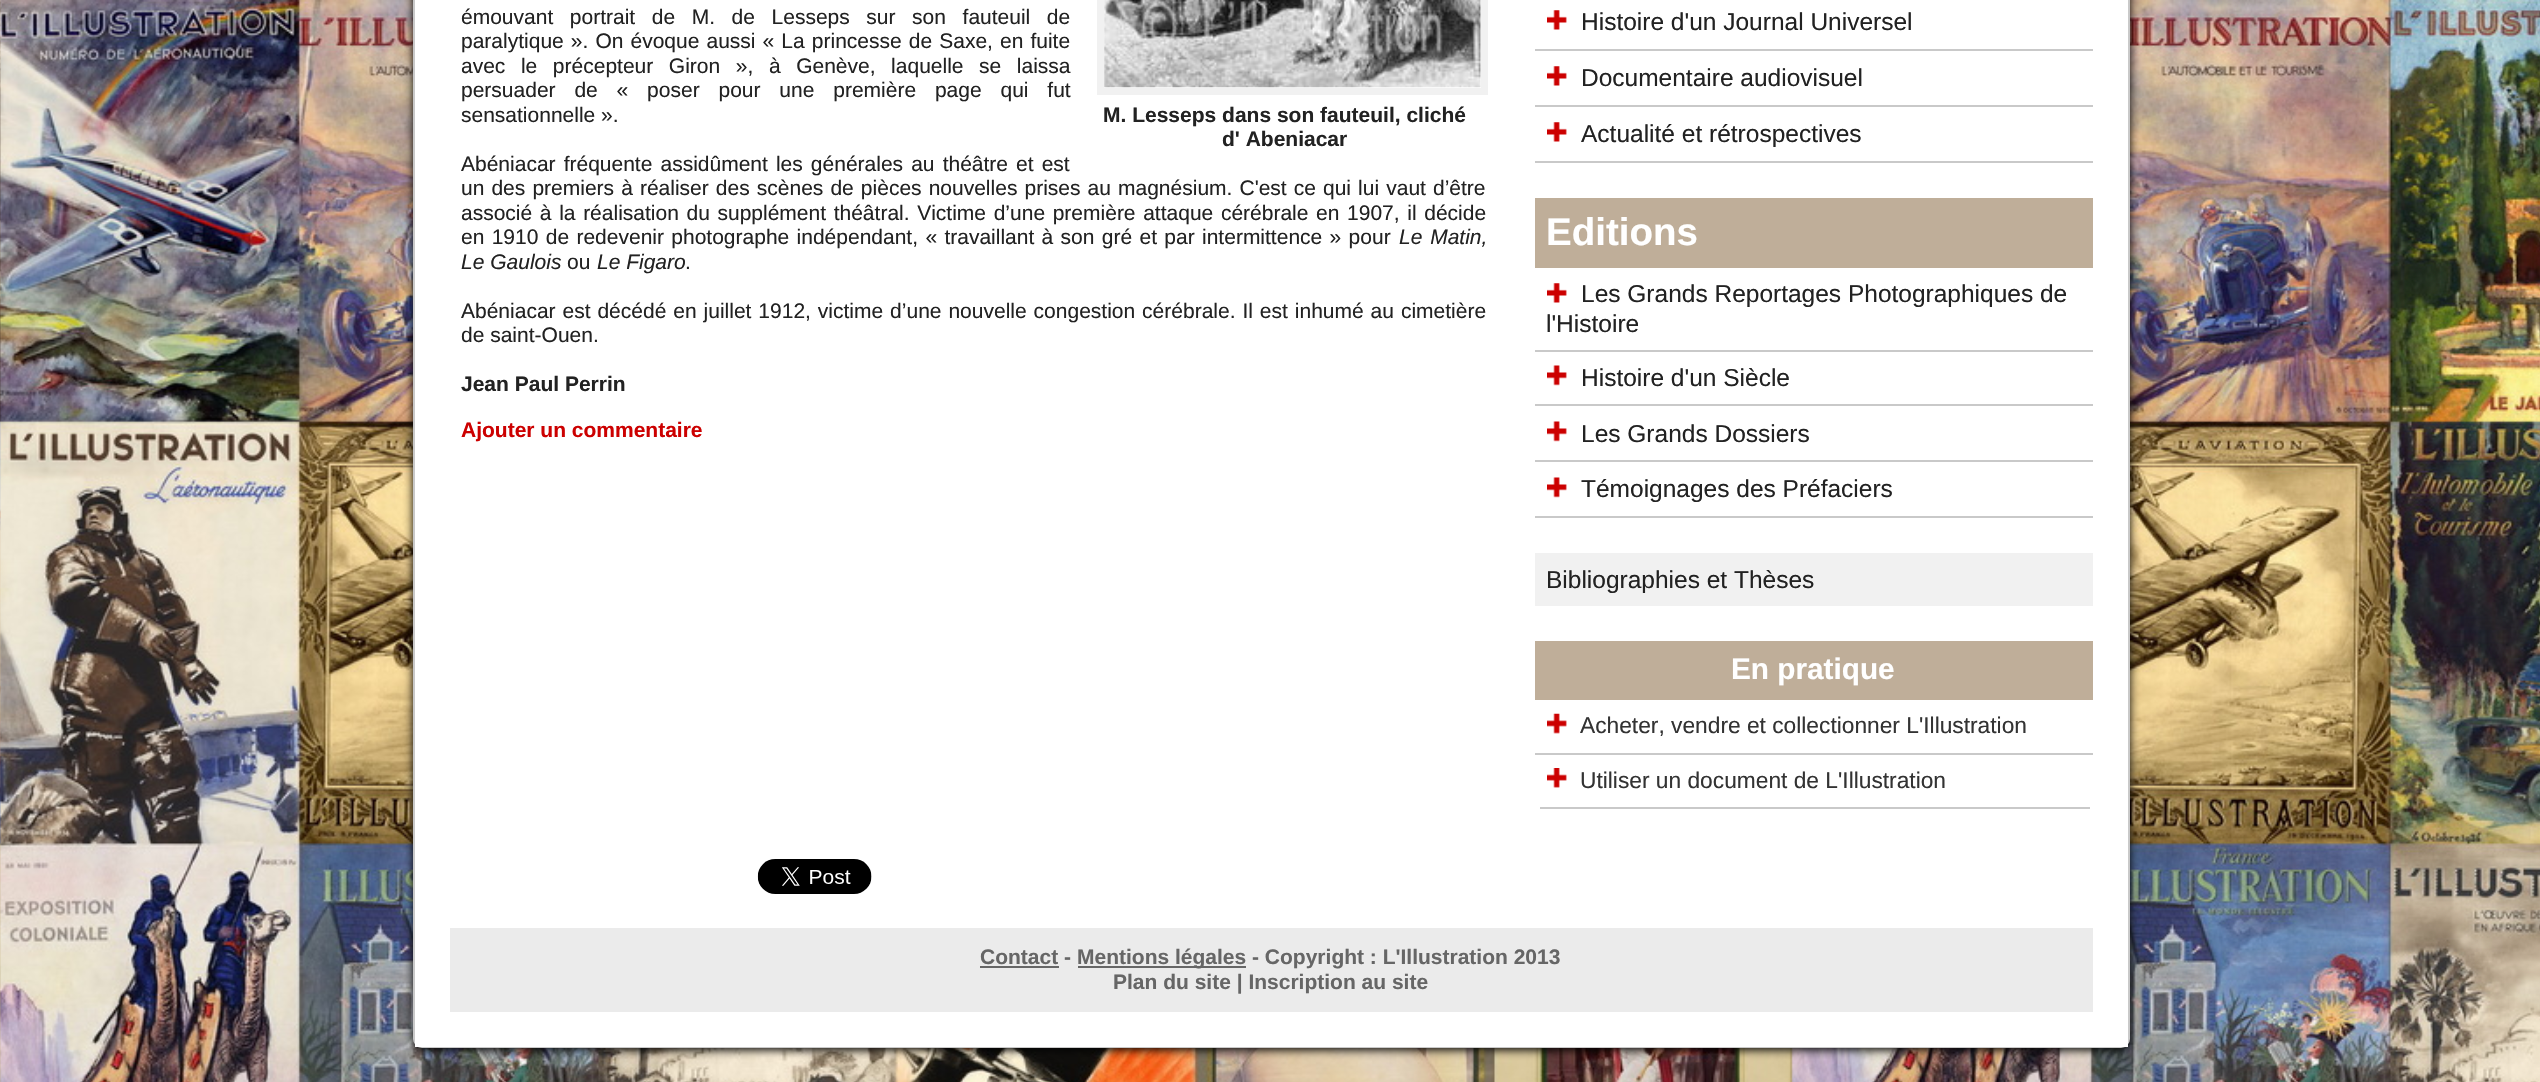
void draw(SkCanvas* canvas) {
    SkPaint paint;
    paint.setAntiAlias(true);
    auto face = [&](const char* family, int weight, float size, bool italic = false) {
        SkFontStyle style(weight, SkFontStyle::kNormal_Width,
            italic ? SkFontStyle::kItalic_Slant : SkFontStyle::kUpright_Slant);
        SkFont result(fontMgr->matchFamilyStyle(family, style), size);
        result.setSubpixel(true);
        return result;
    };
    auto write = [&](const char* s, float x, float y, const SkFont& font, SkColor color) {
        SkPaint ink(SkColor4f::FromColor(color));
        ink.setAntiAlias(true);
        canvas->drawString(s, x, y, font, ink);
    };
    auto writeSpaced = [&](const char* s, float x, float y, const SkFont& font, const SkPaint& ink, float letter, float word) {
        std::vector<SkGlyphID> glyphs(font.countText(s, strlen(s), SkTextEncoding::kUTF8));
        std::vector<float> xs(glyphs.size());
        font.textToGlyphs(s, strlen(s), SkTextEncoding::kUTF8, glyphs);
        font.getXPos(glyphs, xs, x);
        float extra = 0;
        for (size_t i = 0; i < glyphs.size(); i++) {
            xs[i] += extra;
            extra += letter + word * (glyphs[i] == font.unicharToGlyph(' '));
        }
        canvas->drawTextBlob(SkTextBlob::MakeFromPosHGlyphs(glyphs, xs, y, font), 0, 0, ink);
    };
    auto block = [&](float x, float y, float w, float h, SkColor color) {
        SkPaint ink(SkColor4f::FromColor(color));
        ink.setAntiAlias(true);
        canvas->drawRect(SkRect::MakeXYWH(x, y, w, h), ink);
    };
    auto paste = [&](const char* path, float x, float y, float w, float h) {
        auto image = SkImages::DeferredFromEncodedData(SkData::MakeFromFileName(path));
        canvas->drawImageRect(image, SkRect::MakeXYWH(x, y, w, h), SkSamplingOptions());
    };
    canvas->clear(SK_ColorWHITE);
    paste("pic1.png", 0, 0, 2540, 1082);
    paint.setColor(SK_ColorBLACK);
    paint.setMaskFilter(SkMaskFilter::MakeBlur(kNormal_SkBlurStyle, 5));
    canvas->drawRoundRect(SkRect::MakeXYWH(413, -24, 1717, 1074), 9, 9, paint);
    paint.setMaskFilter(nullptr);
    paint.setStyle(SkPaint::kStroke_Style);
    paint.setStrokeWidth(2);
    paint.setColor(SkColorSetRGB(201, 201, 201));
    canvas->drawRoundRect(SkRect::MakeXYWH(414, -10, 1715, 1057), 8, 8, paint);
    block(415, 0, 1713, 1047, SK_ColorWHITE);
    auto kFont1 = face("Liberation Sans", 400, 21);
    paint.setStyle(SkPaint::kFill_Style);
    paint.setColor(SkColorSetRGB(34, 34, 34));
    writeSpaced("émouvant portrait de M. de Lesseps sur son fauteuil de", 461, 24, kFont1, paint, 0, 10.75f);
    writeSpaced("paralytique ». On évoque aussi « La princesse de Saxe, en fuite", 461, 48, kFont1, paint, 0, 1.25f);
    writeSpaced("avec le précepteur Giron », à Genève, laquelle se laissa", 461, 73, kFont1, paint, 0, 9.75f);
    writeSpaced("persuader de « poser pour une première page qui fut", 461, 97, kFont1, paint, 0, 13);
    write("sensationnelle ».", 461, 122, kFont1, SkColorSetRGB(34, 34, 34));
    writeSpaced("Abéniacar fréquente assidûment les générales au théâtre et est", 461, 171, kFont1, paint, 0, 2.25f);
    writeSpaced("un des premiers à réaliser des scènes de pièces nouvelles prises au magnésium. C'est ce qui lui vaut d’être", 461, 195, kFont1, paint, 0, 1.25f);
    writeSpaced("associé à la réalisation du supplément théâtral. Victime d’une première attaque cérébrale en 1907, il décide", 461, 220, kFont1, paint, 0, 1.8f);
    writeSpaced("en 1910 de redevenir photographe indépendant, « travaillant à son gré et par intermittence » pour", 461, 244, kFont1, paint, 0, 1.5f);
    auto kFont2 = face("Liberation Sans", 400, 21, true);
    writeSpaced("Le Matin,", 1399, 244, kFont2, paint, 0, 2);
    write("Le Gaulois", 461, 269, kFont2, SkColorSetRGB(34, 34, 34));
    write("ou", 567, 269, kFont1, SkColorSetRGB(34, 34, 34));
    write("Le Figaro", 597, 269, kFont2, SkColorSetRGB(34, 34, 34));
    write(".", 685, 269, kFont1, SkColorSetRGB(34, 34, 34));
    writeSpaced("Abéniacar est décédé en juillet 1912, victime d’une nouvelle congestion cérébrale. Il est inhumé au cimetière", 461, 318, kFont1, paint, 0, 1.1f);
    write("de saint-Ouen.", 461, 342, kFont1, SkColorSetRGB(34, 34, 34));
    auto kFont3 = face("Liberation Sans", 700, 21);
    write("Jean Paul Perrin", 461, 391, kFont3, SkColorSetRGB(34, 34, 34));
    paint.setStyle(SkPaint::kStroke_Style);
    paint.setStrokeWidth(7);
    paint.setColor(SkColorSetRGB(241, 241, 241));
    canvas->drawRect(SkRect::MakeXYWH(1100.5f, -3.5f, 384, 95), paint);
    paste("pic2.png", 1104, 0, 377, 88);
    write("M. Lesseps dans son fauteuil, cliché", 1103, 122, kFont3, SkColorSetRGB(34, 34, 34));
    write("d' Abeniacar", 1222, 146, kFont3, SkColorSetRGB(34, 34, 34));
    write("Ajouter un commentaire", 461, 437, kFont3, SkColorSetRGB(204, 0, 0));
    block(1535, 49, 558, 2, SkColorSetRGB(201, 201, 201));
    paste("pic3.png", 1547, 10, 20, 20);
    auto kFont4 = face("Liberation Sans", 400, 24.5f);
    write("Histoire d'un Journal Universel", 1581, 30, kFont4, SkColorSetRGB(34, 34, 34));
    block(1535, 105, 558, 2, SkColorSetRGB(201, 201, 201));
    paste("pic3.png", 1547, 66, 20, 20);
    write("Documentaire audiovisuel", 1581, 86, kFont4, SkColorSetRGB(34, 34, 34));
    block(1535, 161, 558, 2, SkColorSetRGB(201, 201, 201));
    paste("pic3.png", 1547, 122, 20, 20);
    write("Actualité et rétrospectives", 1581, 142, kFont4, SkColorSetRGB(34, 34, 34));
    block(1535, 198, 558, 70, SkColorSetRGB(191, 174, 153));
    auto kFont5 = face("Liberation Sans", 700, 38.5f);
    write("Editions", 1546, 245, kFont5, SK_ColorWHITE);
    block(1535, 350, 558, 2, SkColorSetRGB(201, 201, 201));
    paste("pic3.png", 1547, 283, 20, 20);
    write("Les Grands Reportages Photographiques de", 1581, 302, kFont4, SkColorSetRGB(34, 34, 34));
    write("l'Histoire", 1546, 332, kFont4, SkColorSetRGB(34, 34, 34));
    block(1535, 404, 558, 2, SkColorSetRGB(201, 201, 201));
    paste("pic4.png", 1547, 365, 20, 21);
    write("Histoire d'un Siècle", 1581, 386, kFont4, SkColorSetRGB(34, 34, 34));
    block(1535, 460, 558, 2, SkColorSetRGB(201, 201, 201));
    paste("pic4.png", 1547, 421, 20, 21);
    write("Les Grands Dossiers", 1581, 442, kFont4, SkColorSetRGB(34, 34, 34));
    block(1535, 516, 558, 2, SkColorSetRGB(201, 201, 201));
    paste("pic4.png", 1547, 477, 20, 21);
    write("Témoignages des Préfaciers", 1581, 497, kFont4, SkColorSetRGB(34, 34, 34));
    block(1535, 553, 558, 53, SkColorSetRGB(241, 241, 241));
    write("Bibliographies et Thèses", 1546, 588, kFont4, SkColorSetRGB(34, 34, 34));
    block(1535, 641, 558, 59, SkColorSetRGB(191, 174, 153));
    auto kFont6 = face("Liberation Sans", 700, 29.75f);
    write("En pratique", 1731, 679, kFont6, SK_ColorWHITE);
    block(1535, 753, 558, 2, SkColorSetRGB(201, 201, 201));
    paste("pic5.png", 1547, 713, 20, 21);
    auto kFont7 = face("Liberation Sans", 400, 22.75f);
    write("Acheter, vendre et collectionner L'Illustration", 1580, 733, kFont7, SkColorSetRGB(51, 51, 51));
    block(1540, 807, 550, 2, SkColorSetRGB(201, 201, 201));
    paste("pic6.png", 1547, 768, 20, 20);
    write("Utiliser un document de L'Illustration", 1580, 788, kFont7, SkColorSetRGB(51, 51, 51));
    paste("pic7.png", 757, 859, 115, 35);
    block(450, 928, 1643, 84, SkColorSetRGB(235, 235, 235));
    write("Contact -", 980, 964, kFont3, SkColorSetRGB(102, 102, 102));
    block(980, 966, 79, 2, SkColorSetRGB(102, 102, 102));
    block(1078, 966, 168, 2, SkColorSetRGB(102, 102, 102));
    write("Mentions légales - Copyright : L'Illustration 2013", 1077, 964, kFont3, SkColorSetRGB(102, 102, 102));
    write("Plan du site | Inscription au site", 1113, 989, kFont3, SkColorSetRGB(102, 102, 102));
}
